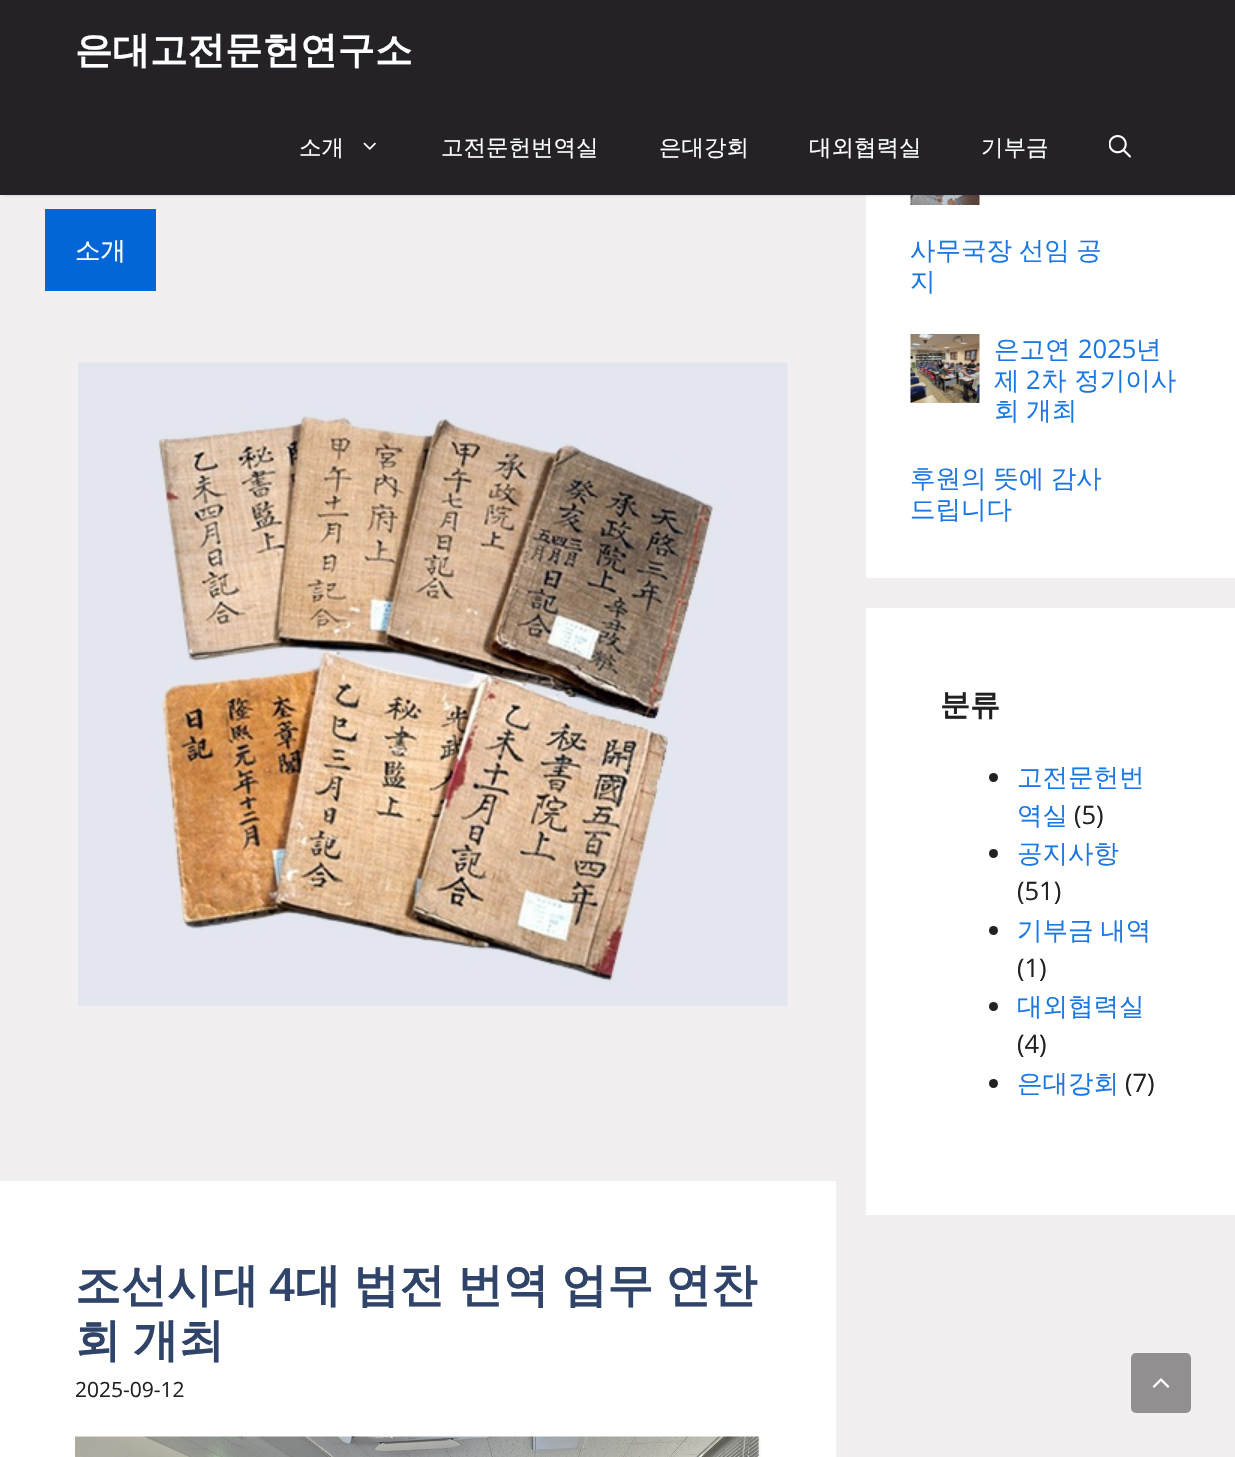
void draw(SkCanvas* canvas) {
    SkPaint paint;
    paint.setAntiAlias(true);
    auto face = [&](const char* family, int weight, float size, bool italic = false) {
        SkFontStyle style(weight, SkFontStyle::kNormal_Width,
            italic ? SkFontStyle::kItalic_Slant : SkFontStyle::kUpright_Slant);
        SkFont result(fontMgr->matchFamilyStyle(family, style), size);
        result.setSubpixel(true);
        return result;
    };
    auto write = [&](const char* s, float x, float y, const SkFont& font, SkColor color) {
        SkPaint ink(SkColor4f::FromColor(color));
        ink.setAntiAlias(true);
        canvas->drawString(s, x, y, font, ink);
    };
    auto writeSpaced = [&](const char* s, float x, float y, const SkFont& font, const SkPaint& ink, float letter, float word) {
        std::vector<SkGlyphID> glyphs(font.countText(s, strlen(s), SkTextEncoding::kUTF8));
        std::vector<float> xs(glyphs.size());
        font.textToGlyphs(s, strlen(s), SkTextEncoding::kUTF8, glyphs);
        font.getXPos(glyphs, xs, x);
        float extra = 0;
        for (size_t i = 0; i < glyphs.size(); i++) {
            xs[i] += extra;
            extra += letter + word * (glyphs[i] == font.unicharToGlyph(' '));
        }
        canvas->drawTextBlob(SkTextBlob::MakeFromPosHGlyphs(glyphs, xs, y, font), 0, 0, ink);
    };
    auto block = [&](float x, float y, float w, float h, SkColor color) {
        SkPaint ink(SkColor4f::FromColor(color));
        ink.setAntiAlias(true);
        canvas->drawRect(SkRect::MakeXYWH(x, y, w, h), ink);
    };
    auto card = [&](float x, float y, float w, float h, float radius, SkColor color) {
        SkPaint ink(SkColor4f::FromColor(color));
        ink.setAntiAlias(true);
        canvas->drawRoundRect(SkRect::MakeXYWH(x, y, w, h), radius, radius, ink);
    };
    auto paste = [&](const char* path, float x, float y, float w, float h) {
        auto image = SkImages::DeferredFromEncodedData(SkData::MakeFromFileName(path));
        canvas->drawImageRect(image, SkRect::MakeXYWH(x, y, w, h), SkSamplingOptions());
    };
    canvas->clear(SkColorSetRGB(241, 239, 239));
    block(866, 195, 369, 383, SK_ColorWHITE);
    paste("pic5.png", 910, 195, 70, 10);
    paint.setColor(SkColorSetARGB(51, 0, 0, 0));
    paint.setMaskFilter(SkMaskFilter::MakeBlur(kNormal_SkBlurStyle, 1.5f));
    canvas->drawRect(SkRect::MakeXYWH(3, 6, 1230, 189), paint);
    paint.setMaskFilter(nullptr);
    block(0, 0, 1235, 195, SkColorSetRGB(36, 34, 38));
    auto kFont1 = face("WenQuanYi Zen Hei", 700, 37.5f);
    write("은대고전문헌연구소", 75, 63, kFont1, SK_ColorWHITE);
    auto kFont2 = face("WenQuanYi Zen Hei", 500, 22.5f);
    write("소개", 299, 155, kFont2, SK_ColorWHITE);
    paste("pic1.png", 363, 142, 13, 8);
    write("고전문헌번역실", 441, 155, kFont2, SK_ColorWHITE);
    write("은대강회", 659, 155, kFont2, SK_ColorWHITE);
    write("대외협력실", 809, 155, kFont2, SK_ColorWHITE);
    write("기부금", 981, 155, kFont2, SK_ColorWHITE);
    paste("pic2.png", 1109, 135, 22, 23);
    block(45, 209, 111, 82, SkColorSetRGB(3, 102, 214));
    auto kFont3 = face("WenQuanYi Zen Hei", 500, 25.5f);
    write("소개", 75, 259, kFont3, SK_ColorWHITE);
    paste("pic3.png", 78, 362, 710, 644);
    block(0, 1181, 836, 276, SK_ColorWHITE);
    auto kFont4 = face("WenQuanYi Zen Hei", 700, 45.9f);
    write("조선시대", 75, 1301, kFont4, SkColorSetRGB(47, 68, 104));
    auto kFont5 = face("Open Sans", 600, 45.9f);
    write("4", 269, 1301, kFont5, SkColorSetRGB(47, 68, 104));
    paint.setColor(SkColorSetRGB(47, 68, 104));
    writeSpaced("대 법전 번역 업무 연찬", 295, 1301, kFont4, paint, 0, -1.5f);
    writeSpaced("회 개최", 75, 1356, kFont4, paint, 0, -2);
    auto kFont6 = face("Open Sans", 400, 21);
    write("2025-09-12", 75, 1397, kFont6, SkColorSetRGB(33, 33, 33));
    paste("pic4.png", 75, 1436, 686, 21);
    paint.setColor(SkColorSetRGB(27, 120, 226));
    writeSpaced("사무국장 선임 공", 910, 259, kFont3, paint, 0, -1);
    write("지", 910, 290, kFont3, SkColorSetRGB(27, 120, 226));
    paste("pic6.png", 910, 334, 70, 69);
    write("은고연", 994, 358, kFont3, SkColorSetRGB(27, 120, 226));
    auto kFont7 = face("Open Sans", 400, 25.5f);
    write("2025", 1078, 358, kFont7, SkColorSetRGB(27, 120, 226));
    write("년", 1136, 358, kFont3, SkColorSetRGB(27, 120, 226));
    write("제", 994, 389, kFont3, SkColorSetRGB(27, 120, 226));
    write("2", 1026, 389, kFont7, SkColorSetRGB(27, 120, 226));
    write("차 정기이사", 1041, 389, kFont3, SkColorSetRGB(27, 120, 226));
    writeSpaced("회 개최", 994, 419, kFont3, paint, 0, -1);
    writeSpaced("후원의 뜻에 감사", 910, 487, kFont3, paint, 0, -1);
    write("드립니다", 910, 518, kFont3, SkColorSetRGB(27, 120, 226));
    block(866, 608, 369, 607, SK_ColorWHITE);
    auto kFont8 = face("WenQuanYi Zen Hei", 700, 30);
    write("분류", 940, 715, kFont8, SkColorSetRGB(33, 33, 33));
    paint.setColor(SkColorSetRGB(33, 33, 33));
    canvas->drawCircle(993.5f, 777.5f, 4.5f, paint);
    write("고전문헌번", 1017, 786, kFont3, SkColorSetRGB(27, 120, 226));
    write("역실", 1017, 824, kFont3, SkColorSetRGB(27, 120, 226));
    write("(5)", 1074, 824, kFont7, SkColorSetRGB(33, 33, 33));
    canvas->drawCircle(993.5f, 853.5f, 4.5f, paint);
    write("공지사항", 1017, 862, kFont3, SkColorSetRGB(27, 120, 226));
    write("(51)", 1017, 900, kFont7, SkColorSetRGB(33, 33, 33));
    canvas->drawCircle(993.5f, 930.5f, 4.5f, paint);
    paint.setColor(SkColorSetRGB(27, 120, 226));
    writeSpaced("기부금 내역", 1017, 939, kFont3, paint, 0, -1);
    write("(1)", 1017, 977, kFont7, SkColorSetRGB(33, 33, 33));
    paint.setColor(SkColorSetRGB(33, 33, 33));
    canvas->drawCircle(993.5f, 1006.5f, 4.5f, paint);
    write("대외협력실", 1017, 1015, kFont3, SkColorSetRGB(27, 120, 226));
    write("(4)", 1017, 1053, kFont7, SkColorSetRGB(33, 33, 33));
    canvas->drawCircle(993.5f, 1083.5f, 4.5f, paint);
    write("은대강회", 1017, 1092, kFont3, SkColorSetRGB(27, 120, 226));
    write("(7)", 1125, 1092, kFont7, SkColorSetRGB(33, 33, 33));
    card(1131, 1353, 60, 60, 5, SkColorSetRGB(145, 143, 143));
    paste("pic7.png", 1152, 1378, 18, 10);
}
